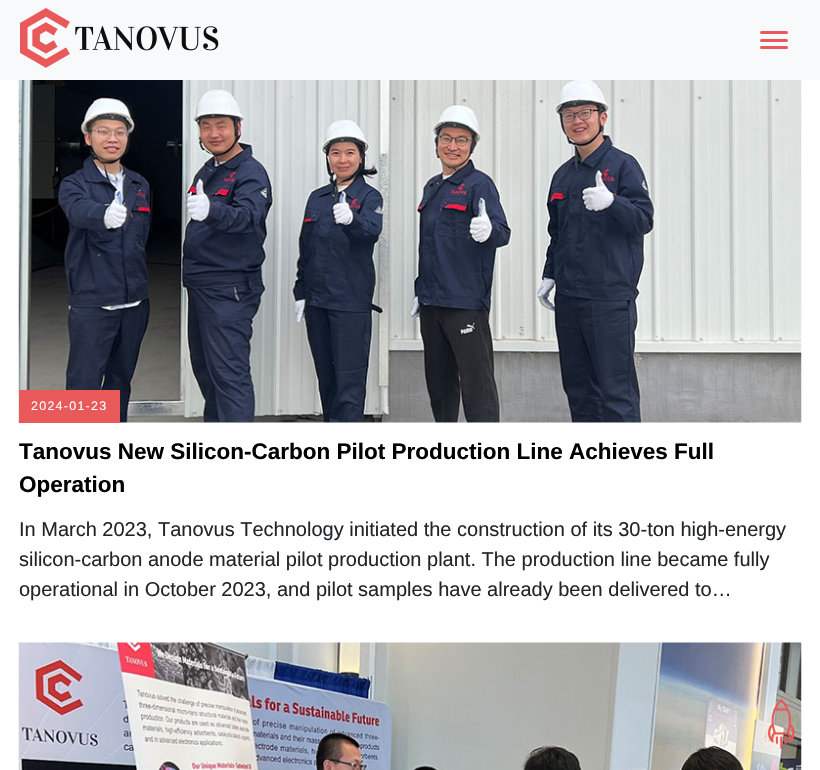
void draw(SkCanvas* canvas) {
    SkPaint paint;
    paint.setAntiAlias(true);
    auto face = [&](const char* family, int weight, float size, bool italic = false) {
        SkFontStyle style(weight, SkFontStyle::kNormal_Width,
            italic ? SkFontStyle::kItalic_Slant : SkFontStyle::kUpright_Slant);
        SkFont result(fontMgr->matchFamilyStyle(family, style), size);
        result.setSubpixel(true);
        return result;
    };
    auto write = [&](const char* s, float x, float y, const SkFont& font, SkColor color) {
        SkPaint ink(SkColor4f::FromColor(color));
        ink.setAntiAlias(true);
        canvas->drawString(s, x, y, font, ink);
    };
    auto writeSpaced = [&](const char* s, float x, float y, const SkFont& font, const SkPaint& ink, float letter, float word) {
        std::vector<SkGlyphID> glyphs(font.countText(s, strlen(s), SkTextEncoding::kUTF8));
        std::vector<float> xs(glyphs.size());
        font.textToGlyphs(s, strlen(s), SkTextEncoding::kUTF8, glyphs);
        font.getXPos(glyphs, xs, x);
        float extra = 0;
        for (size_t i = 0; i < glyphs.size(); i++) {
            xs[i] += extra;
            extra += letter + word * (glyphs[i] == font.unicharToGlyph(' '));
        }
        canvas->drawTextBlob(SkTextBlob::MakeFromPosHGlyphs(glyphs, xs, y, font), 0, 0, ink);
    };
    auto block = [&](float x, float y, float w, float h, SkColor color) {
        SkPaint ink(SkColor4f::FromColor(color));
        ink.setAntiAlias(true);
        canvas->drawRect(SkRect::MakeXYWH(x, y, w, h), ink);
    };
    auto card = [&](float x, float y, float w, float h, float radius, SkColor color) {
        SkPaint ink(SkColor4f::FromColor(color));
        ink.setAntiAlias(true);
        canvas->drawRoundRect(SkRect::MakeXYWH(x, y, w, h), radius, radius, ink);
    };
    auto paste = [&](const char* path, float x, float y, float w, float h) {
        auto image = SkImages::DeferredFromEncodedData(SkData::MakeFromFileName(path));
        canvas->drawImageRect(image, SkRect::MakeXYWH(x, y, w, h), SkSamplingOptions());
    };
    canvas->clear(SK_ColorWHITE);
    block(0, 0, 820, 80, SkColorSetRGB(248, 249, 250));
    paste("pic1.png", 20, 8, 199, 60);
    card(760, 31, 28, 3, 1.5f, SkColorSetRGB(233, 89, 89));
    card(760, 39, 28, 3, 1.5f, SkColorSetRGB(233, 89, 89));
    card(760, 46, 28, 3, 1.5f, SkColorSetRGB(233, 89, 89));
    paste("pic2.png", 18, 80, 784, 343);
    block(19, 390, 101, 33, SkColorSetRGB(233, 89, 89));
    auto kFont1 = face("Liberation Sans", 400, 12.5f);
    paint.setColor(SK_ColorWHITE);
    writeSpaced("2024-01-23", 31, 410, kFont1, paint, 1.25f, 0);
    auto kFont2 = face("Liberation Sans", 700, 22.5f);
    write("Tanovus New Silicon-Carbon Pilot Production Line Achieves Full", 19, 459, kFont2, SK_ColorBLACK);
    write("Operation", 19, 492, kFont2, SK_ColorBLACK);
    auto kFont3 = face("Liberation Sans", 400, 20);
    write("In March 2023, Tanovus Technology initiated the construction of its 30-ton high-energy", 19, 536, kFont3, SkColorSetRGB(33, 37, 41));
    write("silicon-carbon anode material pilot production plant. The production line became fully", 19, 566, kFont3, SkColorSetRGB(33, 37, 41));
    write("operational in October 2023, and pilot samples have already been delivered to…", 19, 596, kFont3, SkColorSetRGB(33, 37, 41));
    paste("pic3.png", 18, 642, 784, 128);
    paste("pic4.png", 768, 699, 27, 51);
}
